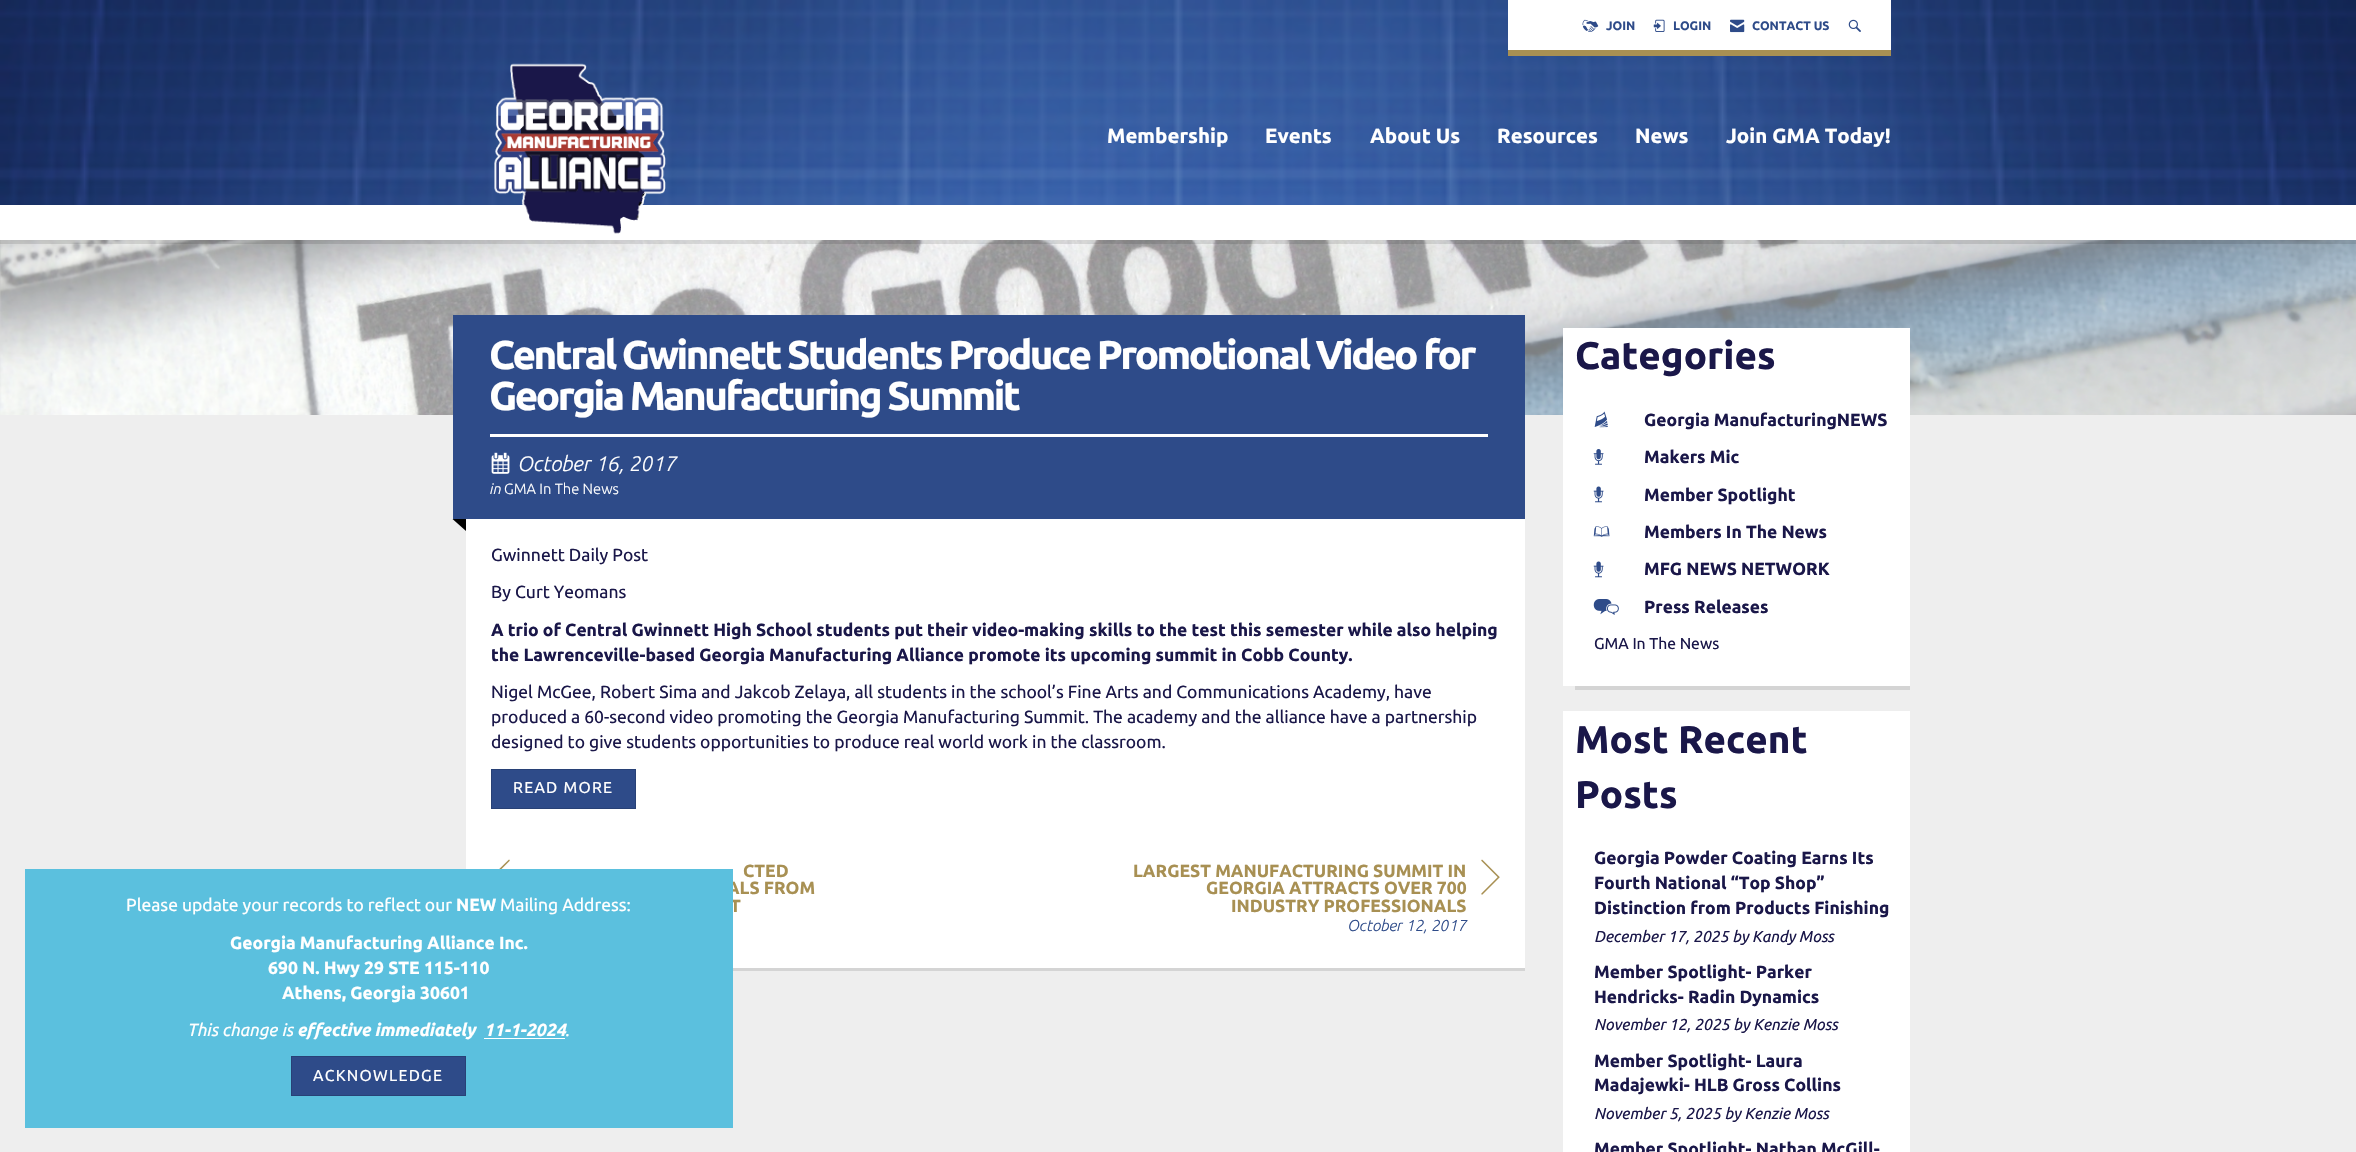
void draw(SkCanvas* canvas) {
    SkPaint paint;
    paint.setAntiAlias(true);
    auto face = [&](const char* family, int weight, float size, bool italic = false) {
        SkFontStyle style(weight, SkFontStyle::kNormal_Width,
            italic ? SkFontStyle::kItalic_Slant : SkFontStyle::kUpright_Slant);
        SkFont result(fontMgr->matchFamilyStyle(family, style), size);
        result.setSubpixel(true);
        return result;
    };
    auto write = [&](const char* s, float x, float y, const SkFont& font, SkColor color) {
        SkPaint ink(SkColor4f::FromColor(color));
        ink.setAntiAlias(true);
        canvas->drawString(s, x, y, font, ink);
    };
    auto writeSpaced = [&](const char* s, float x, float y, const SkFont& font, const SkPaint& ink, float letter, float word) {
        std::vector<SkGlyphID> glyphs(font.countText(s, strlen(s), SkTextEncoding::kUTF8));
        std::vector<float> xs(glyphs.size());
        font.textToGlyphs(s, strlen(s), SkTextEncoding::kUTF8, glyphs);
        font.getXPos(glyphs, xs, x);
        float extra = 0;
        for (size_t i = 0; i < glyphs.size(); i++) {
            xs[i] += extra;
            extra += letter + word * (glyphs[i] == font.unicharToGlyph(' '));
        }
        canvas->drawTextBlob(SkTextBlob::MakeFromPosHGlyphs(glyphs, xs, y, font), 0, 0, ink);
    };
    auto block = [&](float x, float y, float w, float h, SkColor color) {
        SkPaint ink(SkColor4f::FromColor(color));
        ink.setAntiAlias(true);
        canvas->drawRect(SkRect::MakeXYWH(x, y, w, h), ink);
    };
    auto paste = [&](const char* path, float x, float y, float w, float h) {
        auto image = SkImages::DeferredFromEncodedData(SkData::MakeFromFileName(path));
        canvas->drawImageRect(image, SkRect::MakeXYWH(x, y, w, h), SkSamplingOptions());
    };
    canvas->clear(SkColorSetRGB(238, 238, 238));
    paste("pic1.png", 0, 0, 2356, 205);
    block(1508, 0, 383, 50, SK_ColorWHITE);
    block(1508, 50, 383, 6, SkColorSetRGB(168, 144, 83));
    paste("pic2.png", 1582, 19, 17, 13);
    auto kFont1 = face("Ubuntu", 700, 12.25f);
    write("JOIN", 1606, 30, kFont1, SkColorSetRGB(46, 75, 137));
    paste("pic3.png", 1653, 19, 12, 13);
    write("LOGIN", 1673, 30, kFont1, SkColorSetRGB(46, 75, 137));
    paste("pic4.png", 1730, 19, 15, 14);
    write("CONTACT US", 1752, 30, kFont1, SkColorSetRGB(46, 75, 137));
    paste("pic5.png", 1848, 19, 13, 13);
    block(0, 205, 2356, 35, SK_ColorWHITE);
    paste("pic6.png", 494, 63, 172, 171);
    auto kFont2 = face("Ubuntu", 700, 20.5f);
    write("Membership", 1107, 143, kFont2, SK_ColorWHITE);
    write("Events", 1265, 143, kFont2, SK_ColorWHITE);
    write("About Us", 1370, 143, kFont2, SK_ColorWHITE);
    write("Resources", 1497, 143, kFont2, SK_ColorWHITE);
    write("News", 1635, 143, kFont2, SK_ColorWHITE);
    write("Join GMA Today!", 1726, 143, kFont2, SK_ColorWHITE);
    paste("pic7.png", 0, 240, 2356, 175);
    block(0, 240, 2356, 4, SkColorSetARGB(28, 0, 0, 0));
    paint.setColor(SkColorSetRGB(212, 212, 212));
    canvas->drawPath(SkPathBuilder().moveTo(466, 523).lineTo(466, 971).lineTo(1525, 971).lineTo(1525, 968).lineTo(466, 968).close().detach(), paint);
    block(466, 519, 1059, 449, SK_ColorWHITE);
    paint.setColor(SkColorSetRGB(168, 144, 83));
    canvas->drawPath(SkPathBuilder().moveTo(509, 894.5f).cubicTo(508.5f, 894.5f, 493, 879, 491, 877).lineTo(509, 859.5f).cubicTo(509.5f, 859.5f, 510, 860.5f, 509.5f, 861).lineTo(493.5f, 877).lineTo(509.5f, 893.5f).cubicTo(510, 894, 509.5f, 894.5f, 509, 894.5f).close().detach(), paint);
    auto kFont3 = face("Ubuntu", 700, 17.5f);
    write("ALS FROM", 727, 894, kFont3, SkColorSetRGB(168, 144, 83));
    write("T", 730, 912, kFont3, SkColorSetRGB(168, 144, 83));
    block(25, 869, 708, 259, SkColorSetRGB(91, 192, 222));
    auto kFont4 = face("Ubuntu", 400, 17.5f);
    write("Please update your records to reflect our", 126, 911, kFont4, SK_ColorWHITE);
    write("NEW", 456, 911, kFont3, SK_ColorWHITE);
    write("Mailing Address:", 500, 911, kFont4, SK_ColorWHITE);
    write("Georgia Manufacturing Alliance Inc.", 230, 949, kFont3, SK_ColorWHITE);
    write("690 N. Hwy 29 STE 115-110", 268, 974, kFont3, SK_ColorWHITE);
    write("Athens, Georgia 30601", 282, 999, kFont3, SK_ColorWHITE);
    auto kFont5 = face("Ubuntu", 400, 17.5f, true);
    write("This change is", 187, 1036, kFont5, SK_ColorWHITE);
    auto kFont6 = face("Ubuntu", 700, 17.5f, true);
    write("effective immediately", 297, 1036, kFont6, SK_ColorWHITE);
    write("11-1-2024", 484, 1036, kFont6, SK_ColorWHITE);
    write(".", 565, 1036, kFont5, SK_ColorWHITE);
    block(484, 1038, 81, 1, SK_ColorWHITE);
    paint.setColor(SkColorSetRGB(46, 75, 137));
    canvas->drawRect(SkRect::MakeXYWH(291.5f, 1056.5f, 174, 39), paint);
    paint.setStyle(SkPaint::kStroke_Style);
    paint.setStrokeWidth(1);
    paint.setColor(SkColorSetRGB(40, 65, 118));
    canvas->drawRect(SkRect::MakeXYWH(291.5f, 1056.5f, 174, 39), paint);
    auto kFont7 = face("Ubuntu", 400, 15.75f);
    paint.setStyle(SkPaint::kFill_Style);
    paint.setColor(SK_ColorWHITE);
    writeSpaced("ACKNOWLEDGE", 313, 1081, kFont7, paint, 1.25f, 0);
    block(453, 315, 1072, 204, SkColorSetRGB(46, 75, 137));
    block(490, 434, 998, 3, SK_ColorWHITE);
    auto kFont8 = face("Ubuntu", 700, 40.25f);
    writeSpaced("Central Gwinnett Students Produce Promotional Video for", 489, 369, kFont8, paint, -2.5f, 0);
    writeSpaced("Georgia Manufacturing Summit", 489, 410, kFont8, paint, -2.5f, 0);
    paste("pic8.png", 491, 452, 19, 22);
    auto kFont9 = face("Ubuntu", 300, 21, true);
    write("October 16, 2017", 517, 471, kFont9, SK_ColorWHITE);
    auto kFont10 = face("Ubuntu", 300, 14.75f, true);
    write("in", 489, 494, kFont10, SK_ColorWHITE);
    auto kFont11 = face("Ubuntu", 300, 14.75f);
    write("GMA In The News", 504, 494, kFont11, SK_ColorWHITE);
    paint.setColor(SK_ColorBLACK);
    canvas->drawPath(SkPathBuilder().moveTo(452.5f, 519).lineTo(466, 519).lineTo(466, 531).close().detach(), paint);
    write("Gwinnett Daily Post", 491, 561, kFont4, SkColorSetRGB(26, 23, 73));
    write("By Curt Yeomans", 491, 598, kFont4, SkColorSetRGB(26, 23, 73));
    write("A trio of Central Gwinnett High School students put their video-making skills to the test this semester while also helping", 491, 636, kFont3, SkColorSetRGB(26, 23, 73));
    write("the Lawrenceville-based Georgia Manufacturing Alliance promote its upcoming summit in Cobb County.", 491, 661, kFont3, SkColorSetRGB(26, 23, 73));
    write("Nigel McGee, Robert Sima and Jakcob Zelaya, all students in the school’s Fine Arts and Communications Academy, have", 491, 698, kFont4, SkColorSetRGB(26, 23, 73));
    write("produced a 60-second video promoting the Georgia Manufacturing Summit. The academy and the alliance have a partnership", 491, 723, kFont4, SkColorSetRGB(26, 23, 73));
    write("designed to give students opportunities to produce real world work in the classroom.", 491, 748, kFont4, SkColorSetRGB(26, 23, 73));
    paint.setColor(SkColorSetRGB(46, 75, 137));
    canvas->drawRect(SkRect::MakeXYWH(491.5f, 769.5f, 144, 39), paint);
    paint.setStyle(SkPaint::kStroke_Style);
    paint.setColor(SkColorSetRGB(40, 65, 118));
    canvas->drawRect(SkRect::MakeXYWH(491.5f, 769.5f, 144, 39), paint);
    paint.setStyle(SkPaint::kFill_Style);
    paint.setColor(SK_ColorWHITE);
    writeSpaced("READ MORE", 513, 793, kFont7, paint, 1.25f, 0);
    write("CTED", 743, 877, kFont3, SkColorSetRGB(168, 144, 83));
    write("LARGEST MANUFACTURING SUMMIT IN", 1133, 877, kFont3, SkColorSetRGB(168, 144, 83));
    write("GEORGIA ATTRACTS OVER 700", 1206, 894, kFont3, SkColorSetRGB(168, 144, 83));
    write("INDUSTRY PROFESSIONALS", 1231, 912, kFont3, SkColorSetRGB(168, 144, 83));
    paste("pic9.png", 1481, 859, 19, 36);
    auto kFont12 = face("Ubuntu", 300, 15.75f, true);
    write("October 12, 2017", 1347, 931, kFont12, SkColorSetRGB(46, 75, 137));
    block(1563, 328, 347, 358, SK_ColorWHITE);
    auto kFont13 = face("Ubuntu", 700, 38.5f);
    write("Categories", 1575, 369, kFont13, SkColorSetRGB(26, 23, 73));
    block(1575, 686, 335, 4, SkColorSetRGB(212, 212, 212));
    paste("pic10.png", 1594, 411, 14, 17);
    write("Georgia ManufacturingNEWS", 1644, 426, kFont3, SkColorSetRGB(26, 23, 73));
    paste("pic11.png", 1593, 449, 11, 16);
    write("Makers Mic", 1644, 463, kFont3, SkColorSetRGB(26, 23, 73));
    paste("pic12.png", 1593, 486, 11, 17);
    write("Member Spotlight", 1644, 501, kFont3, SkColorSetRGB(26, 23, 73));
    paste("pic13.png", 1593, 526, 17, 11);
    write("Members In The News", 1644, 538, kFont3, SkColorSetRGB(26, 23, 73));
    paste("pic12.png", 1593, 561, 11, 17);
    write("MFG NEWS NETWORK", 1644, 575, kFont3, SkColorSetRGB(26, 23, 73));
    paste("pic14.png", 1593, 599, 26, 16);
    write("Press Releases", 1644, 613, kFont3, SkColorSetRGB(26, 23, 73));
    write("GMA In The News", 1594, 649, kFont7, SkColorSetRGB(26, 23, 73));
    block(1563, 711, 347, 441, SK_ColorWHITE);
    write("Most Recent", 1575, 753, kFont13, SkColorSetRGB(26, 23, 73));
    write("Posts", 1575, 808, kFont13, SkColorSetRGB(26, 23, 73));
    write("Georgia Powder Coating Earns Its", 1594, 864, kFont3, SkColorSetRGB(26, 23, 73));
    write("Fourth National “Top Shop”", 1594, 889, kFont3, SkColorSetRGB(26, 23, 73));
    write("Distinction from Products Finishing", 1594, 914, kFont3, SkColorSetRGB(26, 23, 73));
    auto kFont14 = face("Ubuntu", 400, 15.75f, true);
    write("December 17, 2025 by Kandy Moss", 1594, 942, kFont14, SkColorSetRGB(26, 23, 73));
    write("Member Spotlight- Parker", 1594, 978, kFont3, SkColorSetRGB(26, 23, 73));
    write("Hendricks- Radin Dynamics", 1594, 1003, kFont3, SkColorSetRGB(26, 23, 73));
    write("November 12, 2025 by Kenzie Moss", 1594, 1030, kFont14, SkColorSetRGB(26, 23, 73));
    write("Member Spotlight- Laura", 1594, 1067, kFont3, SkColorSetRGB(26, 23, 73));
    write("Madajewki- HLB Gross Collins", 1594, 1091, kFont3, SkColorSetRGB(26, 23, 73));
    write("November 5, 2025 by Kenzie Moss", 1594, 1119, kFont14, SkColorSetRGB(26, 23, 73));
    write("Member Spotlight- Nathan McGill-", 1594, 1155, kFont3, SkColorSetRGB(26, 23, 73));
}
